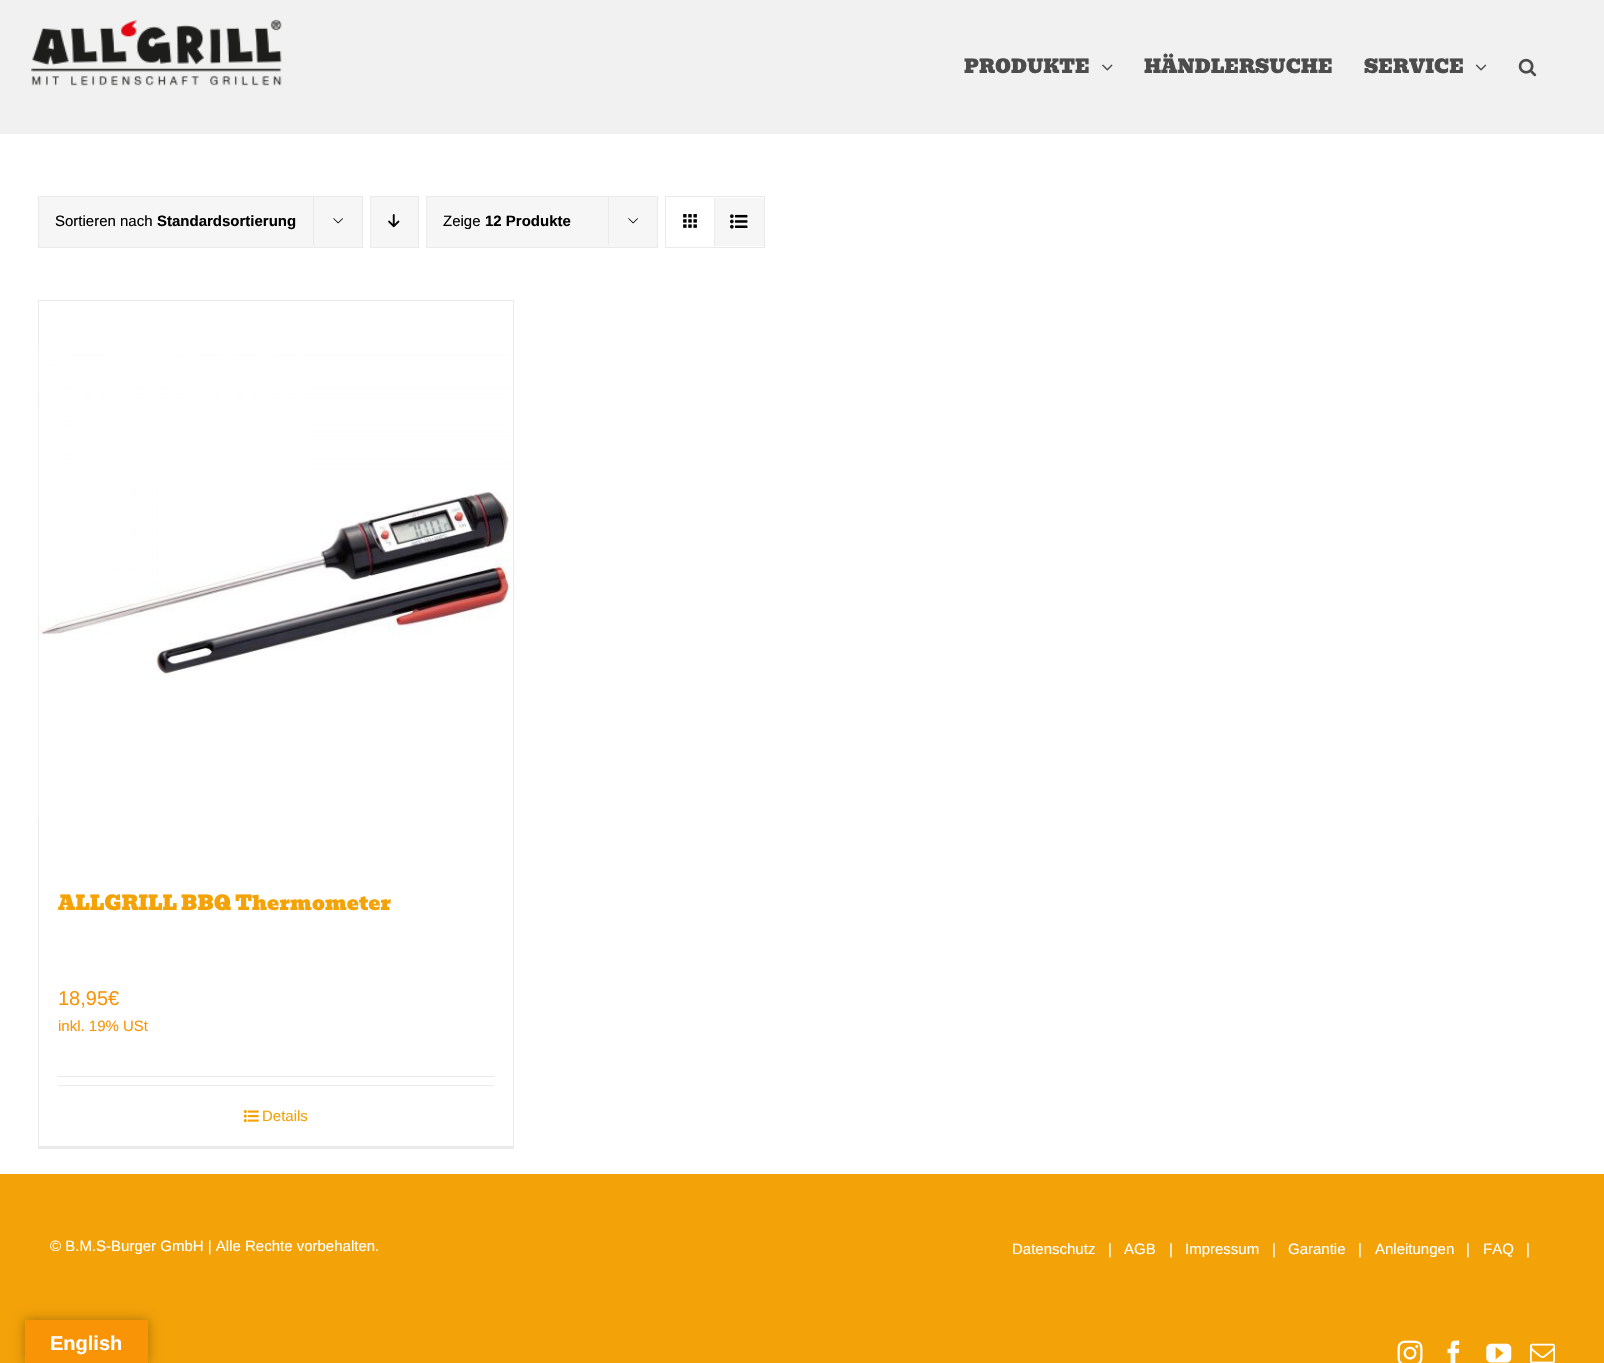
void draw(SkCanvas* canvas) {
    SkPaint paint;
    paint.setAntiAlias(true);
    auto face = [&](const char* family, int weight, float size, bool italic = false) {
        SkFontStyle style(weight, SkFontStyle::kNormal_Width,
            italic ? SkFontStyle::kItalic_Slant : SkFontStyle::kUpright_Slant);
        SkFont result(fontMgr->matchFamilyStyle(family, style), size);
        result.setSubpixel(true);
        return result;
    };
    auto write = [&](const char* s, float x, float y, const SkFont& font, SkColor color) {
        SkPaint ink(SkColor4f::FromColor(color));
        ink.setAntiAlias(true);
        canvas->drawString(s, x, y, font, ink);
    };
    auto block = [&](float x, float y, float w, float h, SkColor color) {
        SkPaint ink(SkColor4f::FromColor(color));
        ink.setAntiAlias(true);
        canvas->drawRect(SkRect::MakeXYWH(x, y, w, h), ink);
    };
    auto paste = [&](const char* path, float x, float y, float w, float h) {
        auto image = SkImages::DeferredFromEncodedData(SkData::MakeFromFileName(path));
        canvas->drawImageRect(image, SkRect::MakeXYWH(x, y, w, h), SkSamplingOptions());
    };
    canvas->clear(SK_ColorWHITE);
    block(0, 0, 1604, 134, SkColorSetRGB(241, 241, 241));
    paste("pic1.png", 31, 19, 251, 67);
    auto kFont1 = face("Bevan", 400, 18.75f);
    write("PRODUKTE", 964, 73, kFont1, SkColorSetRGB(76, 76, 76));
    paste("pic2.png", 1102, 64, 11, 7);
    write("HÄNDLERSUCHE", 1144, 73, kFont1, SkColorSetRGB(76, 76, 76));
    write("SERVICE", 1364, 73, kFont1, SkColorSetRGB(76, 76, 76));
    paste("pic3.png", 1475, 64, 12, 7);
    paste("pic4.png", 1518, 58, 19, 19);
    paint.setColor(SkColorSetRGB(246, 246, 246));
    canvas->drawRect(SkRect::MakeXYWH(38.5f, 196.5f, 324, 51), paint);
    paint.setStyle(SkPaint::kStroke_Style);
    paint.setStrokeWidth(1);
    paint.setColor(SkColorSetRGB(235, 234, 234));
    canvas->drawRect(SkRect::MakeXYWH(38.5f, 196.5f, 324, 51), paint);
    auto kFont2 = face("Liberation Sans", 400, 15);
    write("Sortieren nach", 55, 226, kFont2, SK_ColorBLACK);
    auto kFont3 = face("Liberation Sans", 700, 15);
    write("Standardsortierung", 157, 226, kFont3, SK_ColorBLACK);
    block(313, 196, 1, 49, SkColorSetRGB(235, 234, 234));
    paste("pic5.png", 333, 218, 10, 6);
    paint.setStyle(SkPaint::kFill_Style);
    paint.setColor(SkColorSetRGB(246, 246, 246));
    canvas->drawRect(SkRect::MakeXYWH(370.5f, 196.5f, 48, 51), paint);
    paint.setStyle(SkPaint::kStroke_Style);
    paint.setColor(SkColorSetRGB(235, 234, 234));
    canvas->drawRect(SkRect::MakeXYWH(370.5f, 196.5f, 48, 51), paint);
    paste("pic6.png", 388, 214, 12, 14);
    paint.setStyle(SkPaint::kFill_Style);
    paint.setColor(SkColorSetRGB(246, 246, 246));
    canvas->drawRect(SkRect::MakeXYWH(426.5f, 196.5f, 231, 51), paint);
    paint.setStyle(SkPaint::kStroke_Style);
    paint.setColor(SkColorSetRGB(235, 234, 234));
    canvas->drawRect(SkRect::MakeXYWH(426.5f, 196.5f, 231, 51), paint);
    write("Zeige", 443, 226, kFont2, SK_ColorBLACK);
    write("12 Produkte", 485, 226, kFont3, SK_ColorBLACK);
    block(608, 196, 1, 49, SkColorSetRGB(235, 234, 234));
    paste("pic5.png", 628, 218, 10, 6);
    canvas->drawRect(SkRect::MakeXYWH(665.5f, 196.5f, 99, 51), paint);
    block(714, 198, 1, 48, SkColorSetRGB(235, 234, 234));
    paste("pic7.png", 683, 214, 14, 14);
    block(715, 198, 49, 48, SkColorSetRGB(246, 246, 246));
    paste("pic8.png", 730, 214, 18, 15);
    block(38, 300, 476, 1, SkColorSetRGB(235, 234, 234));
    block(513, 300, 1, 849, SkColorSetRGB(235, 234, 234));
    block(38, 1146, 476, 3, SkColorSetRGB(235, 234, 234));
    block(38, 300, 1, 849, SkColorSetRGB(235, 234, 234));
    paste("pic9.png", 38, 345, 472, 475);
    auto kFont4 = face("Bevan", 400, 20);
    write("ALLGRILL BBQ Thermometer", 58, 910, kFont4, SkColorSetRGB(243, 162, 8));
    auto kFont5 = face("Liberation Sans", 400, 20);
    write("18,95€", 58, 1005, kFont5, SkColorSetRGB(250, 148, 10));
    write("inkl. 19% USt", 58, 1031, kFont2, SkColorSetRGB(250, 148, 10));
    block(58, 1076, 436, 1, SkColorSetRGB(235, 234, 234));
    block(58, 1085, 436, 1, SkColorSetRGB(235, 234, 234));
    paste("pic10.png", 243, 1110, 16, 13);
    write("Details", 262, 1121, kFont2, SkColorSetRGB(243, 162, 8));
    block(0, 1174, 1604, 189, SkColorSetRGB(243, 162, 8));
    write("© B.M.S-Burger GmbH | Alle Rechte vorbehalten.", 50, 1251, kFont2, SK_ColorWHITE);
    write("Datenschutz", 1012, 1254, kFont2, SK_ColorWHITE);
    write("|", 1108, 1254, kFont2, SK_ColorWHITE);
    write("AGB", 1124, 1254, kFont2, SK_ColorWHITE);
    write("|", 1169, 1254, kFont2, SK_ColorWHITE);
    write("Impressum", 1185, 1254, kFont2, SK_ColorWHITE);
    write("|", 1272, 1254, kFont2, SK_ColorWHITE);
    write("Garantie", 1288, 1254, kFont2, SK_ColorWHITE);
    write("|", 1358, 1254, kFont2, SK_ColorWHITE);
    write("Anleitungen", 1375, 1254, kFont2, SK_ColorWHITE);
    write("|", 1466, 1254, kFont2, SK_ColorWHITE);
    write("FAQ", 1483, 1254, kFont2, SK_ColorWHITE);
    write("|", 1526, 1254, kFont2, SK_ColorWHITE);
    paste("pic11.png", 1397, 1340, 26, 23);
    paste("pic12.png", 1447, 1340, 13, 23);
    paste("pic13.png", 1486, 1343, 26, 20);
    paste("pic14.png", 1530, 1343, 25, 20);
    paint.setStyle(SkPaint::kFill_Style);
    paint.setColor(SkColorSetARGB(77, 0, 0, 0));
    paint.setMaskFilter(SkMaskFilter::MakeBlur(kNormal_SkBlurStyle, 5.5f));
    canvas->drawRect(SkRect::MakeXYWH(25, 1320, 123, 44), paint);
    paint.setMaskFilter(nullptr);
    block(25, 1320, 123, 43, SkColorSetRGB(248, 148, 6));
    auto kFont6 = face("Liberation Sans", 700, 20);
    write("English", 50, 1350, kFont6, SK_ColorWHITE);
}
